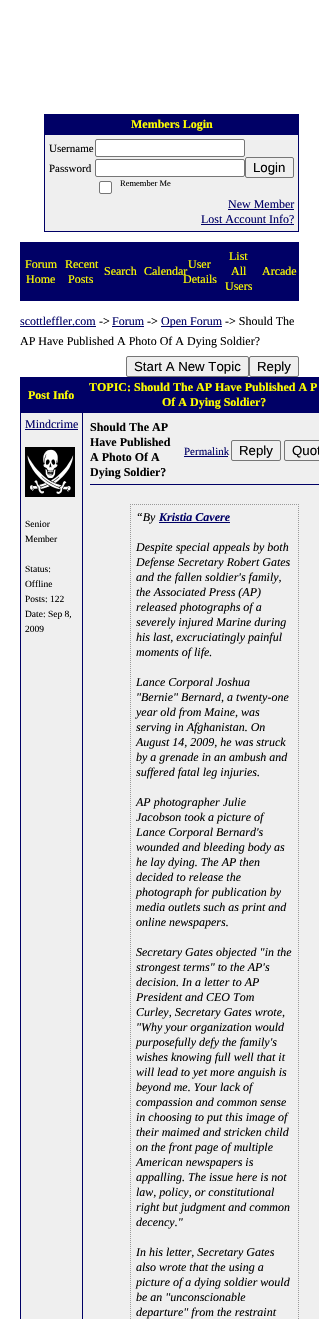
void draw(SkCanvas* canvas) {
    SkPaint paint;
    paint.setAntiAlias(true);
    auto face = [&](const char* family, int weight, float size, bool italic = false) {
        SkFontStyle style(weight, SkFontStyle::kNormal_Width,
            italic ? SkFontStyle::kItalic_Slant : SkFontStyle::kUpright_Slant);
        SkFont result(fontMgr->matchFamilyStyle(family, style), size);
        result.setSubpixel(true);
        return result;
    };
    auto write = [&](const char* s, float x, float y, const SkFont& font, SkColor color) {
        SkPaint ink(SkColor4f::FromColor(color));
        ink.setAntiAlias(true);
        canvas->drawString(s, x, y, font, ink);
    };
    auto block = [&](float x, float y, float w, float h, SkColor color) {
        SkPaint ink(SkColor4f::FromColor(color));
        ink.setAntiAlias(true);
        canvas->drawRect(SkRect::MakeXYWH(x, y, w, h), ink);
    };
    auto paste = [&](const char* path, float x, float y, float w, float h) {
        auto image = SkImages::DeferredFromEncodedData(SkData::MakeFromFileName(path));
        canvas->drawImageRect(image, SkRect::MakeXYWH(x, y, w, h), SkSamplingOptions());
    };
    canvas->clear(SK_ColorWHITE);
    block(44, 114, 255, 1, SkColorSetRGB(0, 0, 102));
    block(298, 114, 1, 118, SkColorSetRGB(0, 0, 102));
    block(44, 231, 255, 1, SkColorSetRGB(0, 0, 102));
    block(44, 114, 1, 118, SkColorSetRGB(0, 0, 102));
    block(45, 115, 253, 19, SkColorSetRGB(0, 0, 102));
    block(44, 134, 255, 1, SkColorSetRGB(0, 0, 102));
    auto kFont1 = face("Liberation Serif", 700, 12);
    write("Members Login", 131, 128, kFont1, SkColorSetRGB(255, 255, 0));
    block(45, 135, 253, 96, SkColorSetRGB(239, 239, 239));
    auto kFont2 = face("Liberation Serif", 400, 11);
    write("Username", 49, 152, kFont2, SK_ColorBLACK);
    paint.setColor(SK_ColorWHITE);
    canvas->drawRoundRect(SkRect::MakeXYWH(95.5f, 139.5f, 149, 17), 1.5f, 1.5f, paint);
    paint.setStyle(SkPaint::kStroke_Style);
    paint.setStrokeWidth(1);
    paint.setColor(SkColorSetRGB(118, 118, 118));
    canvas->drawRoundRect(SkRect::MakeXYWH(95.5f, 139.5f, 149, 17), 1.5f, 1.5f, paint);
    write("Password", 49, 172, kFont2, SK_ColorBLACK);
    paint.setStyle(SkPaint::kFill_Style);
    paint.setColor(SK_ColorWHITE);
    canvas->drawRoundRect(SkRect::MakeXYWH(95.5f, 159.5f, 149, 17), 1.5f, 1.5f, paint);
    paint.setStyle(SkPaint::kStroke_Style);
    paint.setColor(SkColorSetRGB(118, 118, 118));
    canvas->drawRoundRect(SkRect::MakeXYWH(95.5f, 159.5f, 149, 17), 1.5f, 1.5f, paint);
    canvas->drawRoundRect(SkRect::MakeXYWH(245.5f, 157.5f, 48, 20), 1.5f, 1.5f, paint);
    auto kFont3 = face("Liberation Sans", 400, 13.25f);
    write("Login", 253, 172, kFont3, SK_ColorBLACK);
    paint.setStyle(SkPaint::kFill_Style);
    paint.setColor(SK_ColorWHITE);
    canvas->drawRoundRect(SkRect::MakeXYWH(99.5f, 181.5f, 12, 12), 1.5f, 1.5f, paint);
    paint.setStyle(SkPaint::kStroke_Style);
    paint.setColor(SkColorSetRGB(118, 118, 118));
    canvas->drawRoundRect(SkRect::MakeXYWH(99.5f, 181.5f, 12, 12), 1.5f, 1.5f, paint);
    auto kFont4 = face("Liberation Serif", 400, 8.5f);
    write("Remember Me", 120, 186, kFont4, SK_ColorBLACK);
    auto kFont5 = face("Liberation Serif", 400, 12);
    write("New Member", 228, 208, kFont5, SkColorSetRGB(0, 0, 102));
    block(228, 209, 66, 1, SkColorSetRGB(0, 0, 102));
    write("Lost Account Info?", 201, 223, kFont5, SkColorSetRGB(0, 0, 102));
    block(201, 224, 93, 1, SkColorSetRGB(0, 0, 102));
    paint.setColor(SkColorSetRGB(0, 0, 102));
    canvas->drawRect(SkRect::MakeXYWH(20.5f, 242.5f, 278, 58), paint);
    block(21, 243, 277, 57, SkColorSetRGB(0, 0, 102));
    write("Forum", 25, 268, kFont5, SkColorSetRGB(255, 255, 0));
    write("Home", 26, 283, kFont5, SkColorSetRGB(255, 255, 0));
    write("Recent", 65, 268, kFont5, SkColorSetRGB(255, 255, 0));
    write("Posts", 68, 283, kFont5, SkColorSetRGB(255, 255, 0));
    write("Search", 104, 275, kFont5, SkColorSetRGB(255, 255, 0));
    write("Calendar", 144, 275, kFont5, SkColorSetRGB(255, 255, 0));
    write("User", 188, 268, kFont5, SkColorSetRGB(255, 255, 0));
    write("Details", 183, 283, kFont5, SkColorSetRGB(255, 255, 0));
    write("List", 229, 260, kFont5, SkColorSetRGB(255, 255, 0));
    write("All", 231, 275, kFont5, SkColorSetRGB(255, 255, 0));
    write("Users", 225, 290, kFont5, SkColorSetRGB(255, 255, 0));
    write("Arcade", 262, 275, kFont5, SkColorSetRGB(255, 255, 0));
    write("scottleffler.com", 20, 325, kFont5, SkColorSetRGB(0, 0, 102));
    block(20, 326, 76, 1, SkColorSetRGB(0, 0, 102));
    write("->", 99, 325, kFont5, SK_ColorBLACK);
    write("Forum", 112, 325, kFont5, SkColorSetRGB(0, 0, 102));
    block(112, 326, 32, 1, SkColorSetRGB(0, 0, 102));
    write("->", 147, 325, kFont5, SK_ColorBLACK);
    block(161, 326, 61, 1, SkColorSetRGB(0, 0, 102));
    write("Open Forum", 161, 325, kFont5, SkColorSetRGB(0, 0, 102));
    write("-> Should The", 225, 325, kFont5, SK_ColorBLACK);
    write("AP Have Published A Photo Of A Dying Soldier?", 20, 345, kFont5, SK_ColorBLACK);
    paint.setStyle(SkPaint::kFill_Style);
    paint.setColor(SkColorSetRGB(239, 239, 239));
    canvas->drawRoundRect(SkRect::MakeXYWH(126.5f, 356.5f, 122, 20), 1.5f, 1.5f, paint);
    paint.setStyle(SkPaint::kStroke_Style);
    paint.setColor(SkColorSetRGB(118, 118, 118));
    canvas->drawRoundRect(SkRect::MakeXYWH(126.5f, 356.5f, 122, 20), 1.5f, 1.5f, paint);
    write("Start A New Topic", 134, 371, kFont3, SK_ColorBLACK);
    paint.setStyle(SkPaint::kFill_Style);
    paint.setColor(SkColorSetRGB(239, 239, 239));
    canvas->drawRoundRect(SkRect::MakeXYWH(249.5f, 356.5f, 49, 20), 1.5f, 1.5f, paint);
    paint.setStyle(SkPaint::kStroke_Style);
    paint.setColor(SkColorSetRGB(118, 118, 118));
    canvas->drawRoundRect(SkRect::MakeXYWH(249.5f, 356.5f, 49, 20), 1.5f, 1.5f, paint);
    write("Reply", 257, 371, kFont3, SK_ColorBLACK);
    block(20, 377, 299, 1, SkColorSetRGB(0, 0, 102));
    block(20, 377, 1, 942, SkColorSetRGB(0, 0, 102));
    block(21, 378, 61, 34, SkColorSetRGB(0, 0, 102));
    block(82, 412, 237, 1, SkColorSetRGB(0, 0, 102));
    block(82, 412, 1, 907, SkColorSetRGB(0, 0, 102));
    block(20, 412, 63, 1, SkColorSetRGB(0, 0, 102));
    block(82, 377, 1, 36, SkColorSetRGB(0, 0, 102));
    write("Post Info", 28, 399, kFont1, SkColorSetRGB(255, 255, 0));
    block(83, 378, 236, 34, SkColorSetRGB(0, 0, 102));
    write("TOPIC: Should The AP Have Published A P", 89, 391, kFont1, SkColorSetRGB(255, 255, 0));
    write("Of A Dying Soldier?", 162, 406, kFont1, SkColorSetRGB(255, 255, 0));
    block(21, 413, 61, 906, SkColorSetRGB(239, 239, 239));
    write("Mindcrime", 25, 428, kFont5, SkColorSetRGB(0, 0, 102));
    block(25, 429, 53, 1, SkColorSetRGB(0, 0, 102));
    paste("pic1.png", 25, 447, 50, 50);
    auto kFont6 = face("Liberation Serif", 400, 9.5f);
    write("Senior", 25, 527, kFont6, SK_ColorBLACK);
    write("Member", 25, 542, kFont6, SK_ColorBLACK);
    write("Status:", 25, 572, kFont6, SK_ColorBLACK);
    write("Offline", 25, 587, kFont6, SK_ColorBLACK);
    write("Posts: 122", 25, 602, kFont6, SK_ColorBLACK);
    write("Date: Sep 8,", 25, 617, kFont6, SK_ColorBLACK);
    write("2009", 25, 632, kFont6, SK_ColorBLACK);
    block(83, 413, 236, 906, SkColorSetRGB(239, 239, 239));
    write("Should The AP", 90, 431, kFont1, SK_ColorBLACK);
    write("Have Published", 90, 446, kFont1, SK_ColorBLACK);
    write("A Photo Of A", 90, 461, kFont1, SK_ColorBLACK);
    write("Dying Soldier?", 90, 476, kFont1, SK_ColorBLACK);
    write("Permalink", 184, 455, kFont2, SkColorSetRGB(0, 0, 102));
    block(184, 456, 44, 1, SkColorSetRGB(0, 0, 102));
    canvas->drawRoundRect(SkRect::MakeXYWH(231.5f, 440.5f, 49, 20), 1.5f, 1.5f, paint);
    write("Reply", 239, 455, kFont3, SK_ColorBLACK);
    canvas->drawRoundRect(SkRect::MakeXYWH(284.5f, 440.5f, 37, 20), 1.5f, 1.5f, paint);
    write("Quot", 292, 455, kFont3, SK_ColorBLACK);
    block(90, 484, 229, 1, SkColorSetRGB(0, 0, 102));
    paint.setColor(SkColorSetRGB(153, 153, 153));
    paint.setPathEffect(SkDashPathEffect::Make({{1, 1}}, 0));
    canvas->drawPath(SkPathBuilder().moveTo(130, 504.5f).lineTo(299, 504.5f).detach(), paint);
    paint.setPathEffect(nullptr);
    paint.setPathEffect(SkDashPathEffect::Make({{1, 1}}, 0));
    canvas->drawPath(SkPathBuilder().moveTo(298.5f, 504).lineTo(298.5f, 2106).detach(), paint);
    paint.setPathEffect(nullptr);
    paint.setPathEffect(SkDashPathEffect::Make({{1, 1}}, 0));
    canvas->drawPath(SkPathBuilder().moveTo(130.5f, 504).lineTo(130.5f, 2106).detach(), paint);
    paint.setPathEffect(nullptr);
    auto kFont7 = face("Liberation Serif", 400, 12, true);
    write("“By", 136, 521, kFont7, SK_ColorBLACK);
    auto kFont8 = face("Liberation Serif", 700, 12, true);
    write("Kristia Cavere", 159, 521, kFont8, SkColorSetRGB(0, 0, 102));
    block(159, 522, 71, 1, SkColorSetRGB(0, 0, 102));
    write("Despite special appeals by both", 136, 551, kFont7, SK_ColorBLACK);
    write("Defense Secretary Robert Gates", 136, 566, kFont7, SK_ColorBLACK);
    write("and the fallen soldier's family,", 136, 581, kFont7, SK_ColorBLACK);
    write("the Associated Press (AP)", 136, 596, kFont7, SK_ColorBLACK);
    write("released photographs of a", 136, 611, kFont7, SK_ColorBLACK);
    write("severely injured Marine during", 136, 626, kFont7, SK_ColorBLACK);
    write("his last, excruciatingly painful", 136, 641, kFont7, SK_ColorBLACK);
    write("moments of life.", 136, 656, kFont7, SK_ColorBLACK);
    write("Lance Corporal Joshua", 136, 686, kFont7, SK_ColorBLACK);
    write("\"Bernie\" Bernard, a twenty-one", 136, 701, kFont7, SK_ColorBLACK);
    write("year old from Maine, was", 136, 716, kFont7, SK_ColorBLACK);
    write("serving in Afghanistan. On", 136, 731, kFont7, SK_ColorBLACK);
    write("August 14, 2009, he was struck", 136, 746, kFont7, SK_ColorBLACK);
    write("by a grenade in an ambush and", 136, 761, kFont7, SK_ColorBLACK);
    write("suffered fatal leg injuries.", 136, 776, kFont7, SK_ColorBLACK);
    write("AP photographer Julie", 136, 806, kFont7, SK_ColorBLACK);
    write("Jacobson took a picture of", 136, 821, kFont7, SK_ColorBLACK);
    write("Lance Corporal Bernard's", 136, 836, kFont7, SK_ColorBLACK);
    write("wounded and bleeding body as", 136, 851, kFont7, SK_ColorBLACK);
    write("he lay dying. The AP then", 136, 866, kFont7, SK_ColorBLACK);
    write("decided to release the", 136, 881, kFont7, SK_ColorBLACK);
    write("photograph for publication by", 136, 896, kFont7, SK_ColorBLACK);
    write("media outlets such as print and", 136, 911, kFont7, SK_ColorBLACK);
    write("online newspapers.", 136, 926, kFont7, SK_ColorBLACK);
    write("Secretary Gates objected \"in the", 136, 956, kFont7, SK_ColorBLACK);
    write("strongest terms\" to the AP's", 136, 971, kFont7, SK_ColorBLACK);
    write("decision. In a letter to AP", 136, 986, kFont7, SK_ColorBLACK);
    write("President and CEO Tom", 136, 1001, kFont7, SK_ColorBLACK);
    write("Curley, Secretary Gates wrote,", 136, 1016, kFont7, SK_ColorBLACK);
    write("\"Why your organization would", 136, 1031, kFont7, SK_ColorBLACK);
    write("purposefully defy the family's", 136, 1046, kFont7, SK_ColorBLACK);
    write("wishes knowing full well that it", 136, 1061, kFont7, SK_ColorBLACK);
    write("will lead to yet more anguish is", 136, 1076, kFont7, SK_ColorBLACK);
    write("beyond me. Your lack of", 136, 1091, kFont7, SK_ColorBLACK);
    write("compassion and common sense", 136, 1106, kFont7, SK_ColorBLACK);
    write("in choosing to put this image of", 136, 1121, kFont7, SK_ColorBLACK);
    write("their maimed and stricken child", 136, 1136, kFont7, SK_ColorBLACK);
    write("on the front page of multiple", 136, 1151, kFont7, SK_ColorBLACK);
    write("American newspapers is", 136, 1166, kFont7, SK_ColorBLACK);
    write("appalling. The issue here is not", 136, 1181, kFont7, SK_ColorBLACK);
    write("law, policy, or constitutional", 136, 1196, kFont7, SK_ColorBLACK);
    write("right but judgment and common", 136, 1211, kFont7, SK_ColorBLACK);
    write("decency.\"", 136, 1226, kFont7, SK_ColorBLACK);
    write("In his letter, Secretary Gates", 136, 1256, kFont7, SK_ColorBLACK);
    write("also wrote that the using a", 136, 1271, kFont7, SK_ColorBLACK);
    write("picture of a dying soldier would", 136, 1286, kFont7, SK_ColorBLACK);
    write("be an \"unconscionable", 136, 1301, kFont7, SK_ColorBLACK);
    write("departure\" from the restraint", 136, 1316, kFont7, SK_ColorBLACK);
}
